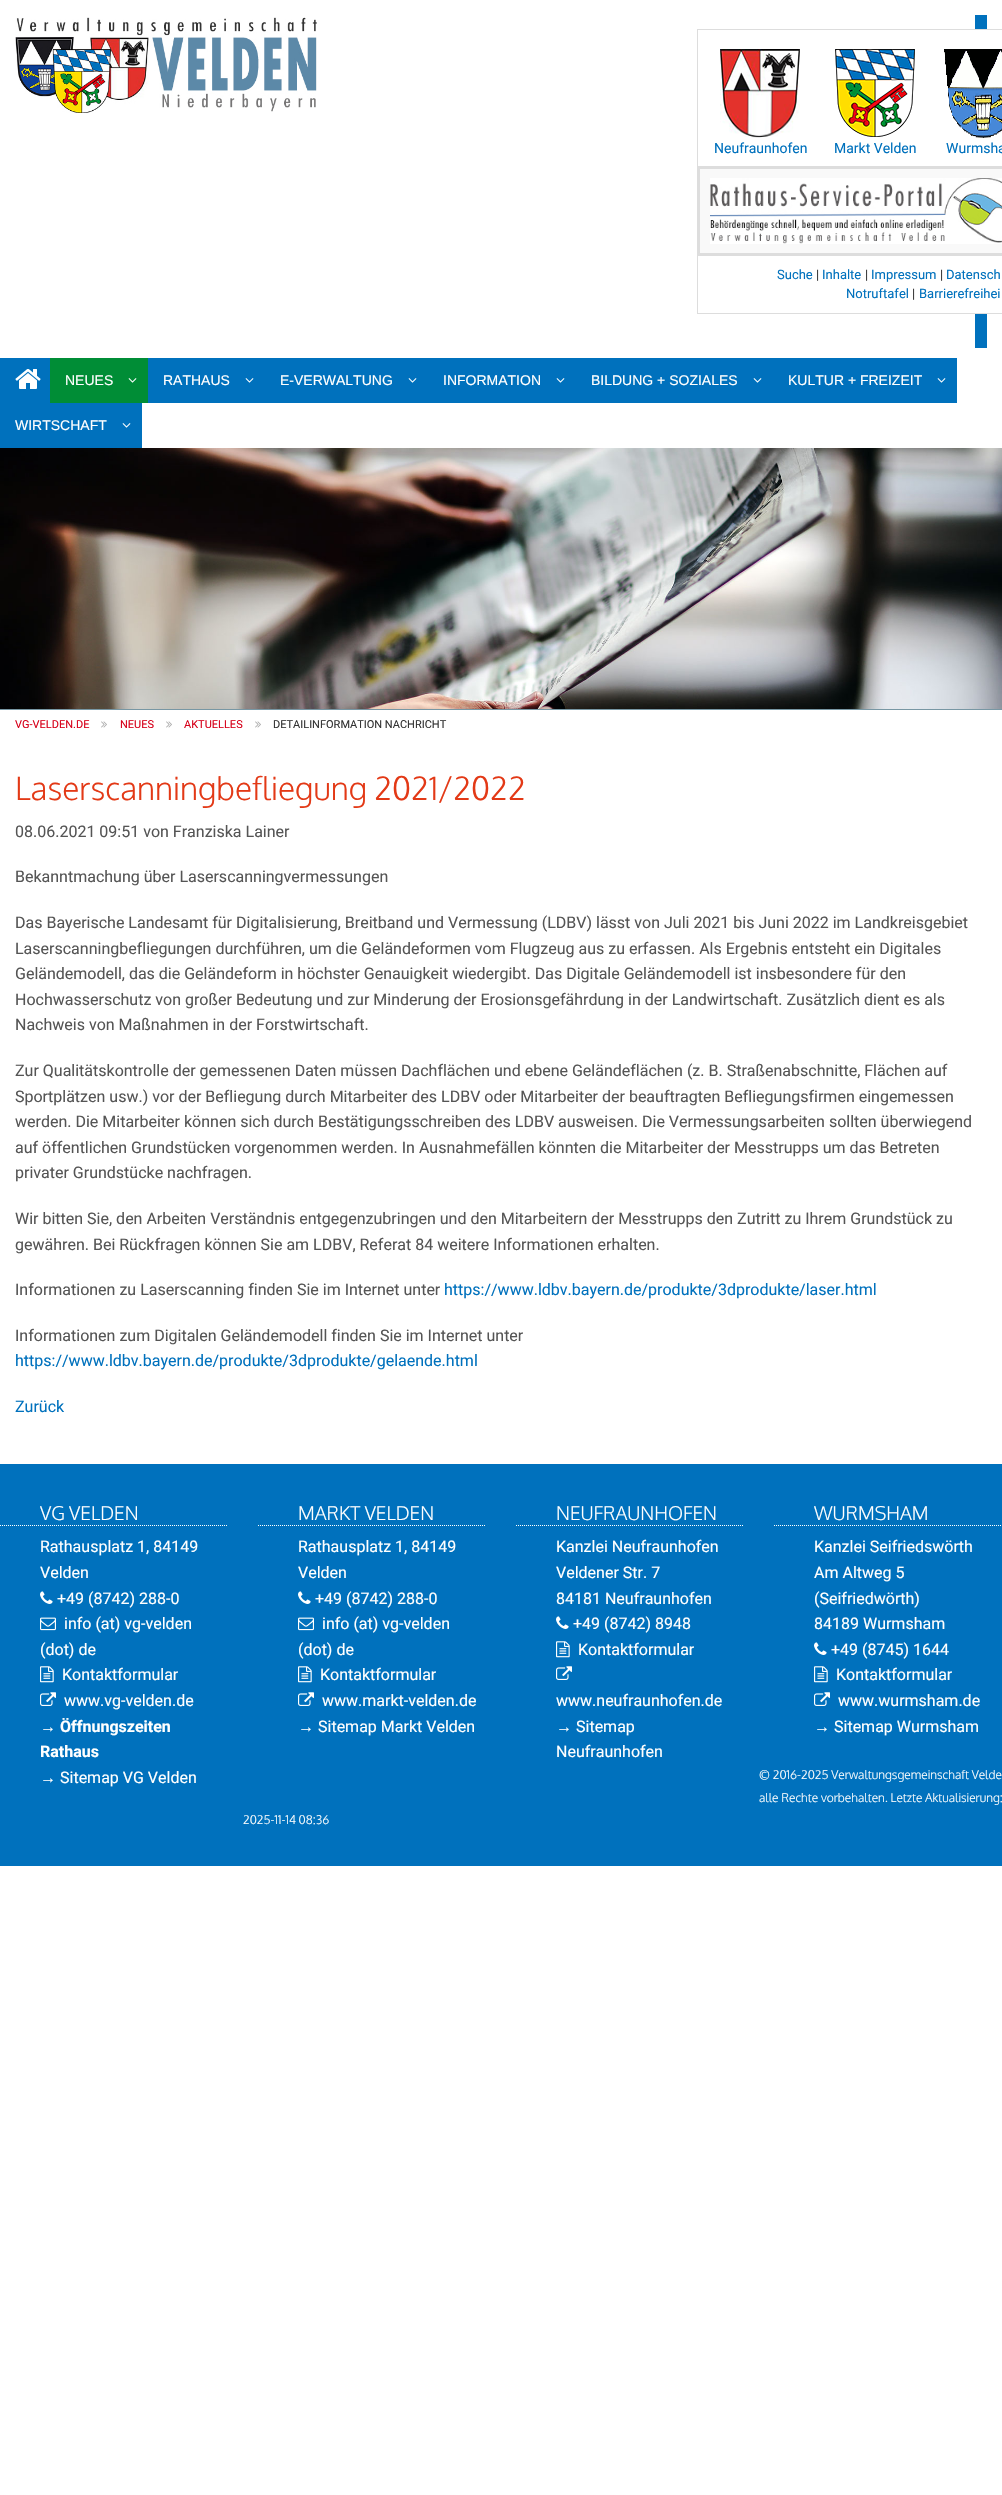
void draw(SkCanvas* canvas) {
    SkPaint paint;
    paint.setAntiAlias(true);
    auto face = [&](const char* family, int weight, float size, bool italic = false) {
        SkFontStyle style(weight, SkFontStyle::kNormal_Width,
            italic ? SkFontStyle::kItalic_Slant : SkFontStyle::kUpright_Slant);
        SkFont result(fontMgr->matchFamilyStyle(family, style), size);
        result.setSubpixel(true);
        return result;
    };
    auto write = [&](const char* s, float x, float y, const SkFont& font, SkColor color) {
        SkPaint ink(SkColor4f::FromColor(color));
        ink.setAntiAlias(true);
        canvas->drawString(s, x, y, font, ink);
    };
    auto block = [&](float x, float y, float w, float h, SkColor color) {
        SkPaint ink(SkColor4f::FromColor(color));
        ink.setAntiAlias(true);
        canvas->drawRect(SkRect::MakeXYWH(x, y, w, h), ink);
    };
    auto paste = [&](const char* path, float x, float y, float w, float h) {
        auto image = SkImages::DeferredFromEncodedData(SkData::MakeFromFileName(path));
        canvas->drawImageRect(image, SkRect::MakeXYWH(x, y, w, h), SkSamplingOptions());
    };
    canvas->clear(SK_ColorWHITE);
    paste("pic1.png", 15, 17, 302, 96);
    block(975, 15, 12, 333, SkColorSetRGB(0, 113, 189));
    block(975, 30, 12, 283, SK_ColorWHITE);
    block(697, 29, 305, 1, SkColorSetRGB(221, 221, 221));
    block(697, 313, 305, 1, SkColorSetRGB(221, 221, 221));
    block(697, 29, 1, 285, SkColorSetRGB(221, 221, 221));
    paste("pic2.png", 720, 49, 80, 89);
    auto kFont1 = face("Roboto", 400, 14);
    write("Neufraunhofen", 714, 153, kFont1, SkColorSetRGB(0, 113, 189));
    paste("pic3.png", 835, 49, 80, 88);
    write("Markt Velden", 834, 153, kFont1, SkColorSetRGB(0, 113, 189));
    paste("pic4.png", 944, 49, 58, 89);
    write("Wurmsha", 946, 153, kFont1, SkColorSetRGB(0, 113, 189));
    block(700, 169, 302, 84, SkColorSetRGB(249, 249, 249));
    block(697, 166, 305, 3, SkColorSetRGB(221, 221, 221));
    block(697, 253, 305, 3, SkColorSetRGB(221, 221, 221));
    block(698, 166, 2, 90, SkColorSetRGB(221, 221, 221));
    paste("pic5.png", 710, 178, 292, 66);
    auto kFont2 = face("Roboto", 400, 13);
    write("Suche", 777, 279, kFont2, SkColorSetRGB(0, 113, 189));
    write("|", 816, 279, kFont2, SkColorSetRGB(51, 51, 51));
    write("Inhalte", 822, 279, kFont2, SkColorSetRGB(0, 113, 189));
    write("|", 865, 279, kFont2, SkColorSetRGB(51, 51, 51));
    write("Impressum", 871, 279, kFont2, SkColorSetRGB(0, 113, 189));
    write("|", 940, 279, kFont2, SkColorSetRGB(51, 51, 51));
    write("Datensch", 946, 279, kFont2, SkColorSetRGB(0, 113, 189));
    write("Notruftafel", 846, 298, kFont2, SkColorSetRGB(0, 113, 189));
    write("|", 912, 298, kFont2, SkColorSetRGB(51, 51, 51));
    write("Barrierefreihei", 919, 298, kFont2, SkColorSetRGB(0, 113, 189));
    block(0, 358, 50, 45, SkColorSetRGB(0, 113, 189));
    paste("pic6.png", 15, 369, 26, 20);
    block(50, 358, 98, 45, SkColorSetRGB(0, 141, 54));
    auto kFont3 = face("Liberation Sans", 400, 14);
    write("NEUES", 65, 385, kFont3, SK_ColorWHITE);
    paste("pic7.png", 128, 378, 9, 5);
    block(148, 358, 809, 45, SkColorSetRGB(0, 113, 189));
    write("RATHAUS", 163, 385, kFont3, SK_ColorWHITE);
    paste("pic8.png", 245, 378, 9, 5);
    write("E-VERWALTUNG", 280, 385, kFont3, SK_ColorWHITE);
    paste("pic8.png", 408, 378, 9, 5);
    write("INFORMATION", 443, 385, kFont3, SK_ColorWHITE);
    paste("pic8.png", 556, 378, 9, 5);
    write("BILDUNG + SOZIALES", 591, 385, kFont3, SK_ColorWHITE);
    paste("pic8.png", 753, 378, 9, 5);
    write("KULTUR + FREIZEIT", 788, 385, kFont3, SK_ColorWHITE);
    paste("pic8.png", 937, 378, 9, 5);
    block(0, 403, 142, 45, SkColorSetRGB(0, 113, 189));
    write("WIRTSCHAFT", 15, 430, kFont3, SK_ColorWHITE);
    paste("pic8.png", 122, 423, 9, 5);
    block(0, 709, 1002, 1, SkColorSetRGB(120, 151, 164));
    paste("pic9.png", 0, 448, 1002, 261);
    auto kFont4 = face("Roboto", 400, 11);
    write("VG-VELDEN.DE", 15, 728, kFont4, SkColorSetRGB(215, 2, 27));
    paste("pic10.png", 101, 721, 6, 7);
    write("NEUES", 120, 728, kFont4, SkColorSetRGB(215, 2, 27));
    paste("pic10.png", 166, 721, 6, 7);
    write("AKTUELLES", 184, 728, kFont4, SkColorSetRGB(215, 2, 27));
    paste("pic10.png", 255, 721, 6, 7);
    write("DETAILINFORMATION NACHRICHT", 273, 728, kFont4, SkColorSetRGB(51, 51, 51));
    auto kFont5 = face("Oxygen", 300, 32);
    write("Laserscanningbefliegung 2021/2022", 15, 800, kFont5, SkColorSetRGB(227, 57, 22));
    auto kFont6 = face("Roboto", 400, 16);
    write("08.06.2021 09:51 von Franziska Lainer", 15, 837, kFont6, SkColorSetRGB(85, 85, 85));
    write("Bekanntmachung über Laserscanningvermessungen", 15, 882, kFont6, SkColorSetRGB(85, 85, 85));
    write("Das Bayerische Landesamt für Digitalisierung, Breitband und Vermessung (LDBV) lässt von Juli 2021 bis Juni 2022 im Landkreisgebiet", 15, 928, kFont6, SkColorSetRGB(85, 85, 85));
    write("Laserscanningbefliegungen durchführen, um die Geländeformen vom Flugzeug aus zu erfassen. Als Ergebnis entsteht ein Digitales", 15, 954, kFont6, SkColorSetRGB(85, 85, 85));
    write("Geländemodell, das die Geländeform in höchster Genauigkeit wiedergibt. Das Digitale Geländemodell ist insbesondere für den", 15, 979, kFont6, SkColorSetRGB(85, 85, 85));
    write("Hochwasserschutz von großer Bedeutung und zur Minderung der Erosionsgefährdung in der Landwirtschaft. Zusätzlich dient es als", 15, 1005, kFont6, SkColorSetRGB(85, 85, 85));
    write("Nachweis von Maßnahmen in der Forstwirtschaft.", 15, 1030, kFont6, SkColorSetRGB(85, 85, 85));
    write("Zur Qualitätskontrolle der gemessenen Daten müssen Dachflächen und ebene Geländeflächen (z. B. Straßenabschnitte, Flächen auf", 15, 1076, kFont6, SkColorSetRGB(85, 85, 85));
    write("Sportplätzen usw.) vor der Befliegung durch Mitarbeiter des LDBV oder Mitarbeiter der beauftragten Befliegungsfirmen eingemessen", 15, 1102, kFont6, SkColorSetRGB(85, 85, 85));
    write("werden. Die Mitarbeiter können sich durch Bestätigungsschreiben des LDBV ausweisen. Die Vermessungsarbeiten sollten überwiegend", 15, 1127, kFont6, SkColorSetRGB(85, 85, 85));
    write("auf öffentlichen Grundstücken vorgenommen werden. In Ausnahmefällen könnten die Mitarbeiter der Messtrupps um das Betreten", 15, 1153, kFont6, SkColorSetRGB(85, 85, 85));
    write("privater Grundstücke nachfragen.", 15, 1178, kFont6, SkColorSetRGB(85, 85, 85));
    write("Wir bitten Sie, den Arbeiten Verständnis entgegenzubringen und den Mitarbeitern der Messtrupps den Zutritt zu Ihrem Grundstück zu", 15, 1224, kFont6, SkColorSetRGB(85, 85, 85));
    write("gewähren. Bei Rückfragen können Sie am LDBV, Referat 84 weitere Informationen erhalten.", 15, 1250, kFont6, SkColorSetRGB(85, 85, 85));
    write("Informationen zu Laserscanning finden Sie im Internet unter", 15, 1295, kFont6, SkColorSetRGB(85, 85, 85));
    write("https://www.ldbv.bayern.de/produkte/3dprodukte/laser.html", 444, 1295, kFont6, SkColorSetRGB(0, 113, 189));
    write("Informationen zum Digitalen Geländemodell finden Sie im Internet unter", 15, 1341, kFont6, SkColorSetRGB(85, 85, 85));
    write("https://www.ldbv.bayern.de/produkte/3dprodukte/gelaende.html", 15, 1366, kFont6, SkColorSetRGB(0, 113, 189));
    write("Zurück", 15, 1412, kFont6, SkColorSetRGB(0, 113, 189));
    block(0, 1464, 1002, 402, SkColorSetRGB(0, 113, 189));
    paint.setStyle(SkPaint::kStroke_Style);
    paint.setStrokeWidth(1);
    paint.setColor(SK_ColorWHITE);
    paint.setPathEffect(SkDashPathEffect::Make({{1, 1}}, 0));
    canvas->drawPath(SkPathBuilder().moveTo(0, 1525.5f).lineTo(228, 1525.5f).detach(), paint);
    paint.setPathEffect(nullptr);
    auto kFont7 = face("Oxygen", 300, 19);
    write("VG VELDEN", 40, 1520, kFont7, SK_ColorWHITE);
    write("Rathausplatz 1, 84149", 40, 1552, kFont6, SK_ColorWHITE);
    write("Velden", 40, 1578, kFont6, SK_ColorWHITE);
    paste("pic11.png", 40, 1591, 13, 13);
    write("+49 (8742) 288-0", 57, 1604, kFont6, SK_ColorWHITE);
    paste("pic12.png", 40, 1617, 16, 14);
    write("info (at) vg-velden", 64, 1629, kFont6, SK_ColorWHITE);
    write("(dot) de", 40, 1655, kFont6, SK_ColorWHITE);
    paste("pic13.png", 40, 1666, 14, 17);
    write("Kontaktformular", 62, 1680, kFont6, SK_ColorWHITE);
    paste("pic14.png", 40, 1692, 16, 14);
    write("www.vg-velden.de", 64, 1706, kFont6, SK_ColorWHITE);
    auto kFont8 = face("Liberation Sans", 400, 16);
    write("→", 40, 1732, kFont8, SK_ColorWHITE);
    auto kFont9 = face("Roboto", 700, 16);
    write("Öffnungszeiten", 60, 1732, kFont9, SK_ColorWHITE);
    write("Rathaus", 40, 1757, kFont9, SK_ColorWHITE);
    write("→", 40, 1783, kFont8, SK_ColorWHITE);
    write("Sitemap VG Velden", 60, 1783, kFont6, SK_ColorWHITE);
    paint.setPathEffect(SkDashPathEffect::Make({{1, 1}}, 0));
    canvas->drawPath(SkPathBuilder().moveTo(258, 1525.5f).lineTo(486, 1525.5f).detach(), paint);
    paint.setPathEffect(nullptr);
    write("MARKT VELDEN", 298, 1520, kFont7, SK_ColorWHITE);
    write("Rathausplatz 1, 84149", 298, 1552, kFont6, SK_ColorWHITE);
    write("Velden", 298, 1578, kFont6, SK_ColorWHITE);
    paste("pic11.png", 298, 1591, 13, 13);
    write("+49 (8742) 288-0", 315, 1604, kFont6, SK_ColorWHITE);
    paste("pic12.png", 298, 1617, 16, 14);
    write("info (at) vg-velden", 322, 1629, kFont6, SK_ColorWHITE);
    write("(dot) de", 298, 1655, kFont6, SK_ColorWHITE);
    paste("pic13.png", 298, 1666, 14, 17);
    write("Kontaktformular", 320, 1680, kFont6, SK_ColorWHITE);
    paste("pic14.png", 298, 1692, 16, 14);
    write("www.markt-velden.de", 322, 1706, kFont6, SK_ColorWHITE);
    write("→", 298, 1732, kFont8, SK_ColorWHITE);
    write("Sitemap Markt Velden", 318, 1732, kFont6, SK_ColorWHITE);
    paint.setPathEffect(SkDashPathEffect::Make({{1, 1}}, 0));
    canvas->drawPath(SkPathBuilder().moveTo(516, 1525.5f).lineTo(744, 1525.5f).detach(), paint);
    paint.setPathEffect(nullptr);
    write("NEUFRAUNHOFEN", 556, 1520, kFont7, SK_ColorWHITE);
    write("Kanzlei Neufraunhofen", 556, 1552, kFont6, SK_ColorWHITE);
    write("Veldener Str. 7", 556, 1578, kFont6, SK_ColorWHITE);
    write("84181 Neufraunhofen", 556, 1604, kFont6, SK_ColorWHITE);
    paste("pic11.png", 556, 1616, 13, 13);
    write("+49 (8742) 8948", 573, 1629, kFont6, SK_ColorWHITE);
    paste("pic13.png", 556, 1641, 14, 17);
    write("Kontaktformular", 578, 1655, kFont6, SK_ColorWHITE);
    paste("pic14.png", 556, 1666, 16, 14);
    write("www.neufraunhofen.de", 556, 1706, kFont6, SK_ColorWHITE);
    write("→", 556, 1732, kFont8, SK_ColorWHITE);
    write("Sitemap", 576, 1732, kFont6, SK_ColorWHITE);
    write("Neufraunhofen", 556, 1757, kFont6, SK_ColorWHITE);
    paint.setPathEffect(SkDashPathEffect::Make({{1, 1}}, 0));
    canvas->drawPath(SkPathBuilder().moveTo(774, 1525.5f).lineTo(1002, 1525.5f).detach(), paint);
    paint.setPathEffect(nullptr);
    write("WURMSHAM", 814, 1520, kFont7, SK_ColorWHITE);
    write("Kanzlei Seifriedswörth", 814, 1552, kFont6, SK_ColorWHITE);
    write("Am Altweg 5", 814, 1578, kFont6, SK_ColorWHITE);
    write("(Seifriedwörth)", 814, 1604, kFont6, SK_ColorWHITE);
    write("84189 Wurmsham", 814, 1629, kFont6, SK_ColorWHITE);
    paste("pic11.png", 814, 1642, 13, 13);
    write("+49 (8745) 1644", 831, 1655, kFont6, SK_ColorWHITE);
    paste("pic13.png", 814, 1666, 14, 17);
    write("Kontaktformular", 836, 1680, kFont6, SK_ColorWHITE);
    paste("pic14.png", 814, 1692, 16, 14);
    write("www.wurmsham.de", 838, 1706, kFont6, SK_ColorWHITE);
    write("→", 814, 1732, kFont8, SK_ColorWHITE);
    write("Sitemap Wurmsham", 834, 1732, kFont6, SK_ColorWHITE);
    auto kFont10 = face("Oxygen", 300, 12);
    write("© 2016-2025 Verwaltungsgemeinschaft Velde", 759, 1779, kFont10, SK_ColorWHITE);
    write("alle Rechte vorbehalten. Letzte Aktualisierung:", 759, 1802, kFont10, SK_ColorWHITE);
    write("2025-11-14 08:36", 243, 1824, kFont10, SK_ColorWHITE);
}
